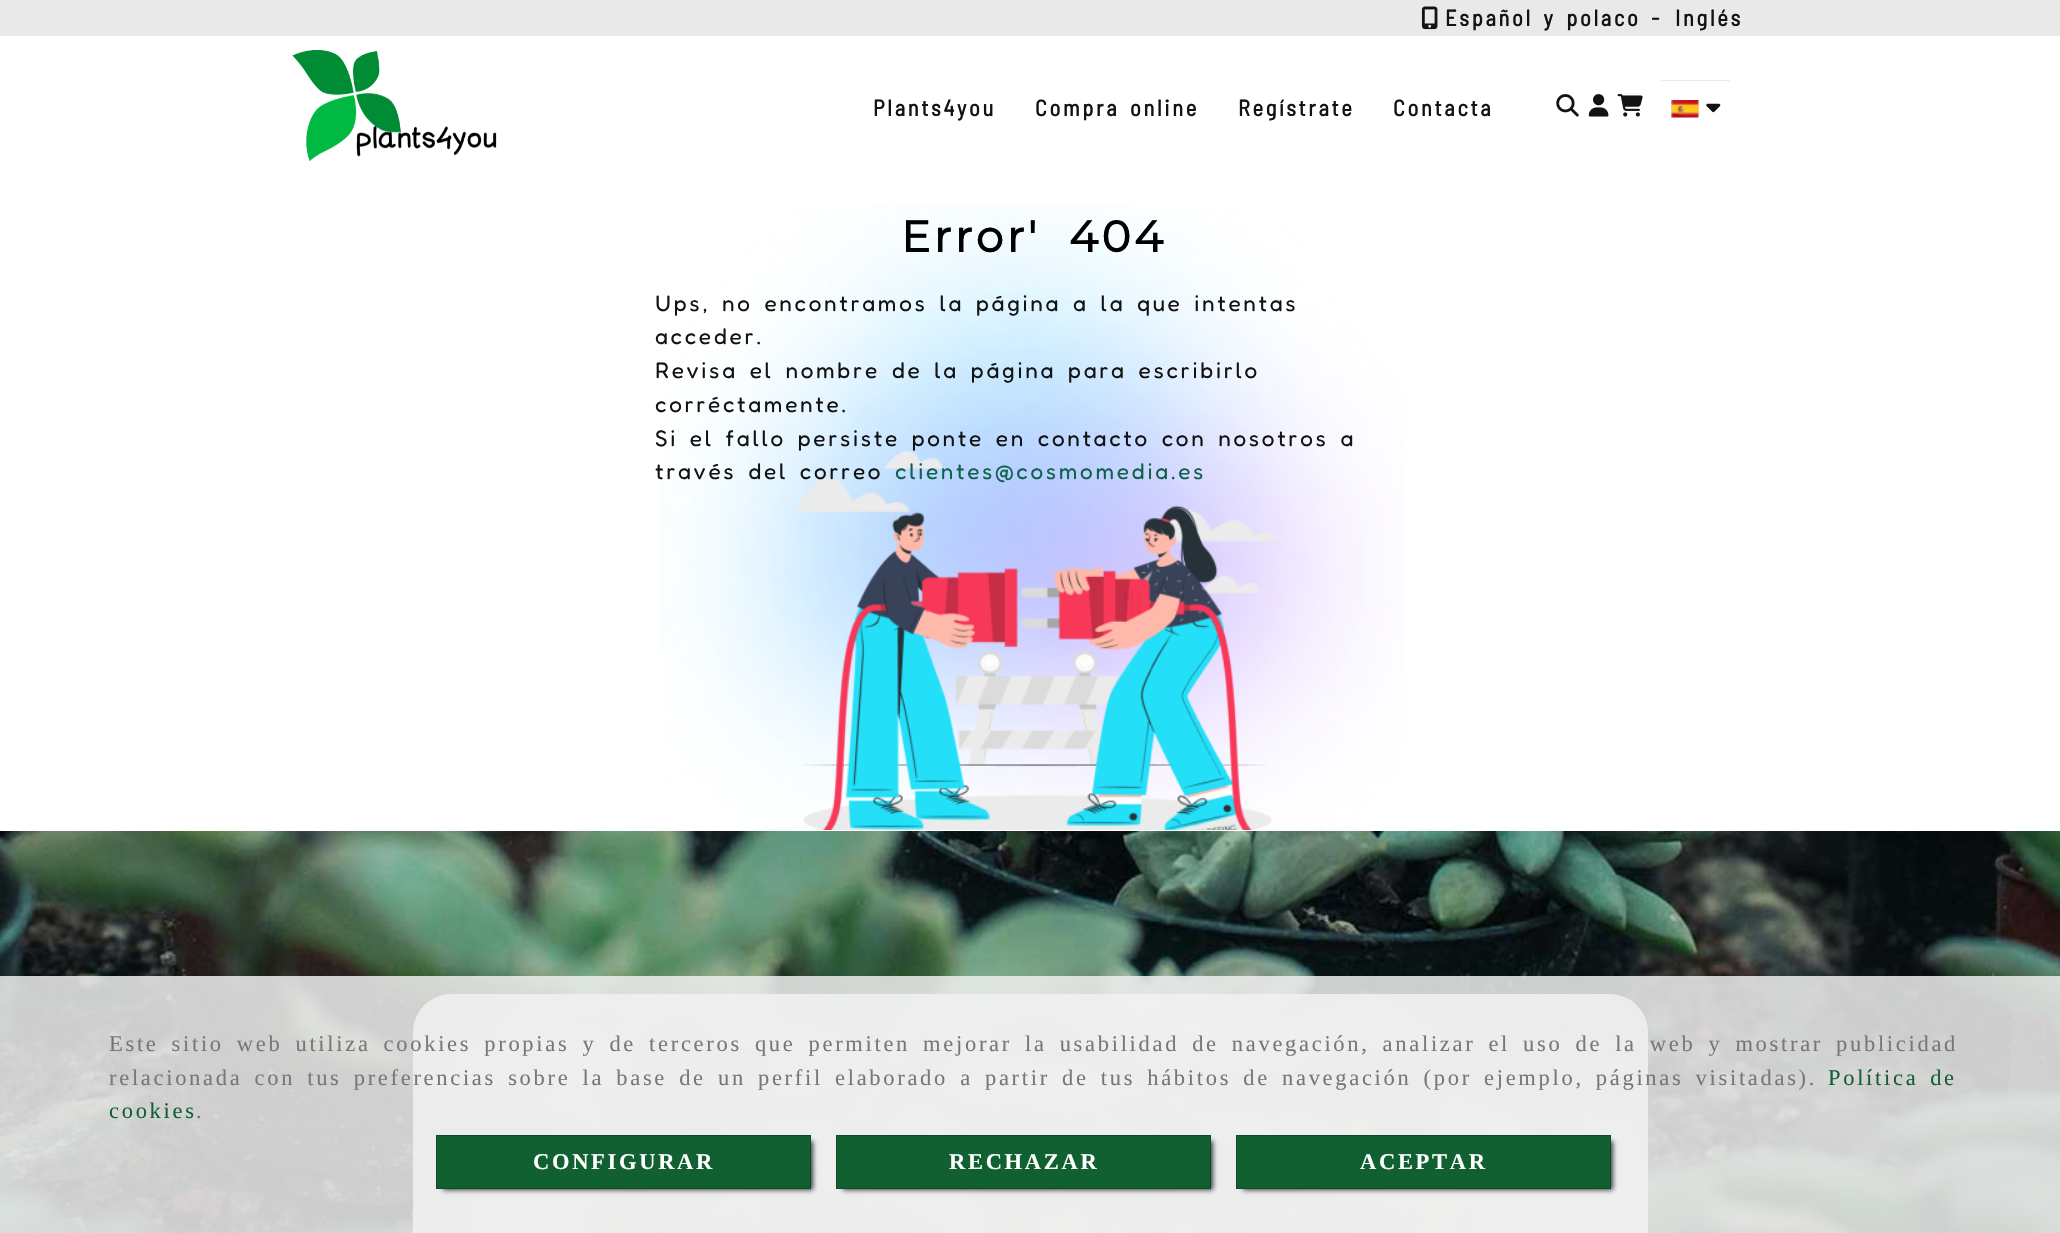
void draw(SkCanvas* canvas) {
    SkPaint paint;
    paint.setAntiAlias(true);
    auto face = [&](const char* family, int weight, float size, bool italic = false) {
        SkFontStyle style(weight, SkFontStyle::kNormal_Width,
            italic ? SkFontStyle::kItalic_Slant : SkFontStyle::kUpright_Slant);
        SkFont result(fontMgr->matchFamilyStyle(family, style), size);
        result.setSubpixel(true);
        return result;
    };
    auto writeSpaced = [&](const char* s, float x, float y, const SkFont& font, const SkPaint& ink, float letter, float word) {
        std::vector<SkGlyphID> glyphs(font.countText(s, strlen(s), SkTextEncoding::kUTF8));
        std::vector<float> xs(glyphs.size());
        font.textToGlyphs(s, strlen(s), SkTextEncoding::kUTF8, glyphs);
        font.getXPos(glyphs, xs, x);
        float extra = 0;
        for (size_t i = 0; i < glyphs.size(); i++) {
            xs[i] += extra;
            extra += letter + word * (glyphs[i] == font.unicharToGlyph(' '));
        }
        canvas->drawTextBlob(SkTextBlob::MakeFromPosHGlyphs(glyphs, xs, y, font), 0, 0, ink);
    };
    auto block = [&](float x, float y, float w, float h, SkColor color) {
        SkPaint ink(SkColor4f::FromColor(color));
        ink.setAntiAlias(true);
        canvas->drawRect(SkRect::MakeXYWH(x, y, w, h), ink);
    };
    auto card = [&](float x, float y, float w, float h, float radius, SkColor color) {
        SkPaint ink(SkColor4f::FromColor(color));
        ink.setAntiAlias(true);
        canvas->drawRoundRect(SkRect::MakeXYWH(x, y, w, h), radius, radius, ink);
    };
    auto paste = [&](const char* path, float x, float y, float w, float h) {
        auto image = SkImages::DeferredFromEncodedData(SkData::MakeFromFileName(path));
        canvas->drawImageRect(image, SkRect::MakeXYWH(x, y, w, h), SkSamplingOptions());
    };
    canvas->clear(SK_ColorWHITE);
    block(0, 0, 2060, 36, SkColorSetRGB(233, 233, 233));
    paste("pic1.png", 1421, 6, 17, 24);
    auto kFont1 = face("Barlow Semi Condensed", 700, 22.5f);
    paint.setColor(SkColorSetRGB(19, 19, 19));
    writeSpaced("Español y polaco -", 1445, 26, kFont1, paint, 2.7f, 3.5f);
    writeSpaced("Inglés", 1675, 26, kFont1, paint, 2.7f, 0);
    paste("pic2.png", 292, 50, 205, 111);
    writeSpaced("Plants4you", 873, 116, kFont1, paint, 2.7f, 0);
    writeSpaced("Compra online", 1035, 116, kFont1, paint, 2.7f, 3.5f);
    writeSpaced("Regístrate", 1238, 116, kFont1, paint, 2.7f, 0);
    writeSpaced("Contacta", 1393, 116, kFont1, paint, 2.7f, 0);
    paste("pic3.png", 1556, 94, 23, 23);
    paste("pic4.png", 1588, 94, 21, 23);
    paste("pic5.png", 1617, 94, 26, 23);
    block(1661, 80, 69, 1, SkColorSetRGB(234, 234, 234));
    paste("pic6.png", 1671, 100, 28, 18);
    paste("pic7.png", 1706, 103, 15, 10);
    paste("pic8.png", 661, 205, 743, 625);
    auto kFont2 = face("Montserrat", 700, 43.75f);
    paint.setColor(SK_ColorBLACK);
    writeSpaced("Error'", 901, 252, kFont2, paint, 3.5f, 0);
    writeSpaced("404", 1069, 252, kFont2, paint, 3.5f, 0);
    auto kFont3 = face("Fredoka", 400, 22.5f);
    paint.setColor(SkColorSetRGB(19, 19, 19));
    writeSpaced("Ups, no encontramos la página a la que intentas", 655, 311, kFont3, paint, 2.7f, 3.5f);
    writeSpaced("acceder.", 655, 344, kFont3, paint, 2.7f, 0);
    writeSpaced("Revisa el nombre de la página para escribirlo", 655, 378, kFont3, paint, 2.7f, 3.5f);
    writeSpaced("corréctamente.", 655, 412, kFont3, paint, 2.7f, 0);
    writeSpaced("Si el fallo persiste ponte en contacto con nosotros a", 655, 446, kFont3, paint, 2.7f, 3.5f);
    writeSpaced("través del correo", 655, 479, kFont3, paint, 2.7f, 3.5f);
    paint.setColor(SkColorSetRGB(17, 97, 76));
    writeSpaced("clientes@cosmomedia.es", 895, 479, kFont3, paint, 2.7f, 0);
    paste("pic9.png", 0, 831, 2060, 402);
    card(413, 994, 1235, 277, 38, SkColorSetARGB(214, 255, 255, 255));
    block(0, 976, 2060, 257, SkColorSetARGB(217, 238, 238, 238));
    auto kFont4 = face("Liberation Serif", 400, 22.5f);
    paint.setColor(SkColorSetRGB(119, 119, 119));
    writeSpaced("Este sitio web utiliza cookies propias y de terceros que permiten mejorar la usabilidad de navegación, analizar el uso de la web y mostrar publicidad", 109, 1051, kFont4, paint, 2.7f, 4.7f);
    writeSpaced("relacionada con tus preferencias sobre la base de un perfil elaborado a partir de tus hábitos de navegación (por ejemplo, páginas visitadas).", 109, 1085, kFont4, paint, 2.7f, 3.8f);
    paint.setColor(SkColorSetRGB(17, 96, 49));
    writeSpaced("Política de", 1828, 1085, kFont4, paint, 2.7f, 3.5f);
    writeSpaced("cookies", 109, 1118, kFont4, paint, 2.7f, 0);
    paint.setColor(SkColorSetRGB(119, 119, 119));
    writeSpaced(".", 196, 1118, kFont4, paint, 2.7f, 0);
    paint.setColor(SkColorSetARGB(191, 0, 0, 0));
    paint.setMaskFilter(SkMaskFilter::MakeBlur(kNormal_SkBlurStyle, 2.5f));
    canvas->drawRect(SkRect::MakeXYWH(443, 1141, 370, 49), paint);
    paint.setMaskFilter(nullptr);
    paint.setColor(SkColorSetRGB(17, 96, 49));
    canvas->drawRect(SkRect::MakeXYWH(436.5f, 1135.5f, 374, 53), paint);
    paint.setStyle(SkPaint::kStroke_Style);
    paint.setStrokeWidth(1);
    paint.setColor(SkColorSetRGB(13, 74, 38));
    canvas->drawRect(SkRect::MakeXYWH(436.5f, 1135.5f, 374, 53), paint);
    auto kFont5 = face("Liberation Serif", 700, 22.5f);
    paint.setStyle(SkPaint::kFill_Style);
    paint.setColor(SK_ColorWHITE);
    writeSpaced("CONFIGURAR", 533, 1169, kFont5, paint, 2.7f, 0);
    paint.setColor(SkColorSetARGB(191, 0, 0, 0));
    paint.setMaskFilter(SkMaskFilter::MakeBlur(kNormal_SkBlurStyle, 2.5f));
    canvas->drawRect(SkRect::MakeXYWH(843, 1141, 370, 49), paint);
    paint.setMaskFilter(nullptr);
    paint.setColor(SkColorSetRGB(17, 96, 49));
    canvas->drawRect(SkRect::MakeXYWH(836.5f, 1135.5f, 374, 53), paint);
    paint.setStyle(SkPaint::kStroke_Style);
    paint.setColor(SkColorSetRGB(13, 74, 38));
    canvas->drawRect(SkRect::MakeXYWH(836.5f, 1135.5f, 374, 53), paint);
    paint.setStyle(SkPaint::kFill_Style);
    paint.setColor(SK_ColorWHITE);
    writeSpaced("RECHAZAR", 949, 1169, kFont5, paint, 2.7f, 0);
    paint.setColor(SkColorSetARGB(191, 0, 0, 0));
    paint.setMaskFilter(SkMaskFilter::MakeBlur(kNormal_SkBlurStyle, 2.5f));
    canvas->drawRect(SkRect::MakeXYWH(1243, 1141, 370, 49), paint);
    paint.setMaskFilter(nullptr);
    paint.setColor(SkColorSetRGB(17, 96, 49));
    canvas->drawRect(SkRect::MakeXYWH(1236.5f, 1135.5f, 374, 53), paint);
    paint.setStyle(SkPaint::kStroke_Style);
    paint.setColor(SkColorSetRGB(13, 74, 38));
    canvas->drawRect(SkRect::MakeXYWH(1236.5f, 1135.5f, 374, 53), paint);
    paint.setStyle(SkPaint::kFill_Style);
    paint.setColor(SK_ColorWHITE);
    writeSpaced("ACEPTAR", 1360, 1169, kFont5, paint, 2.7f, 0);
}
